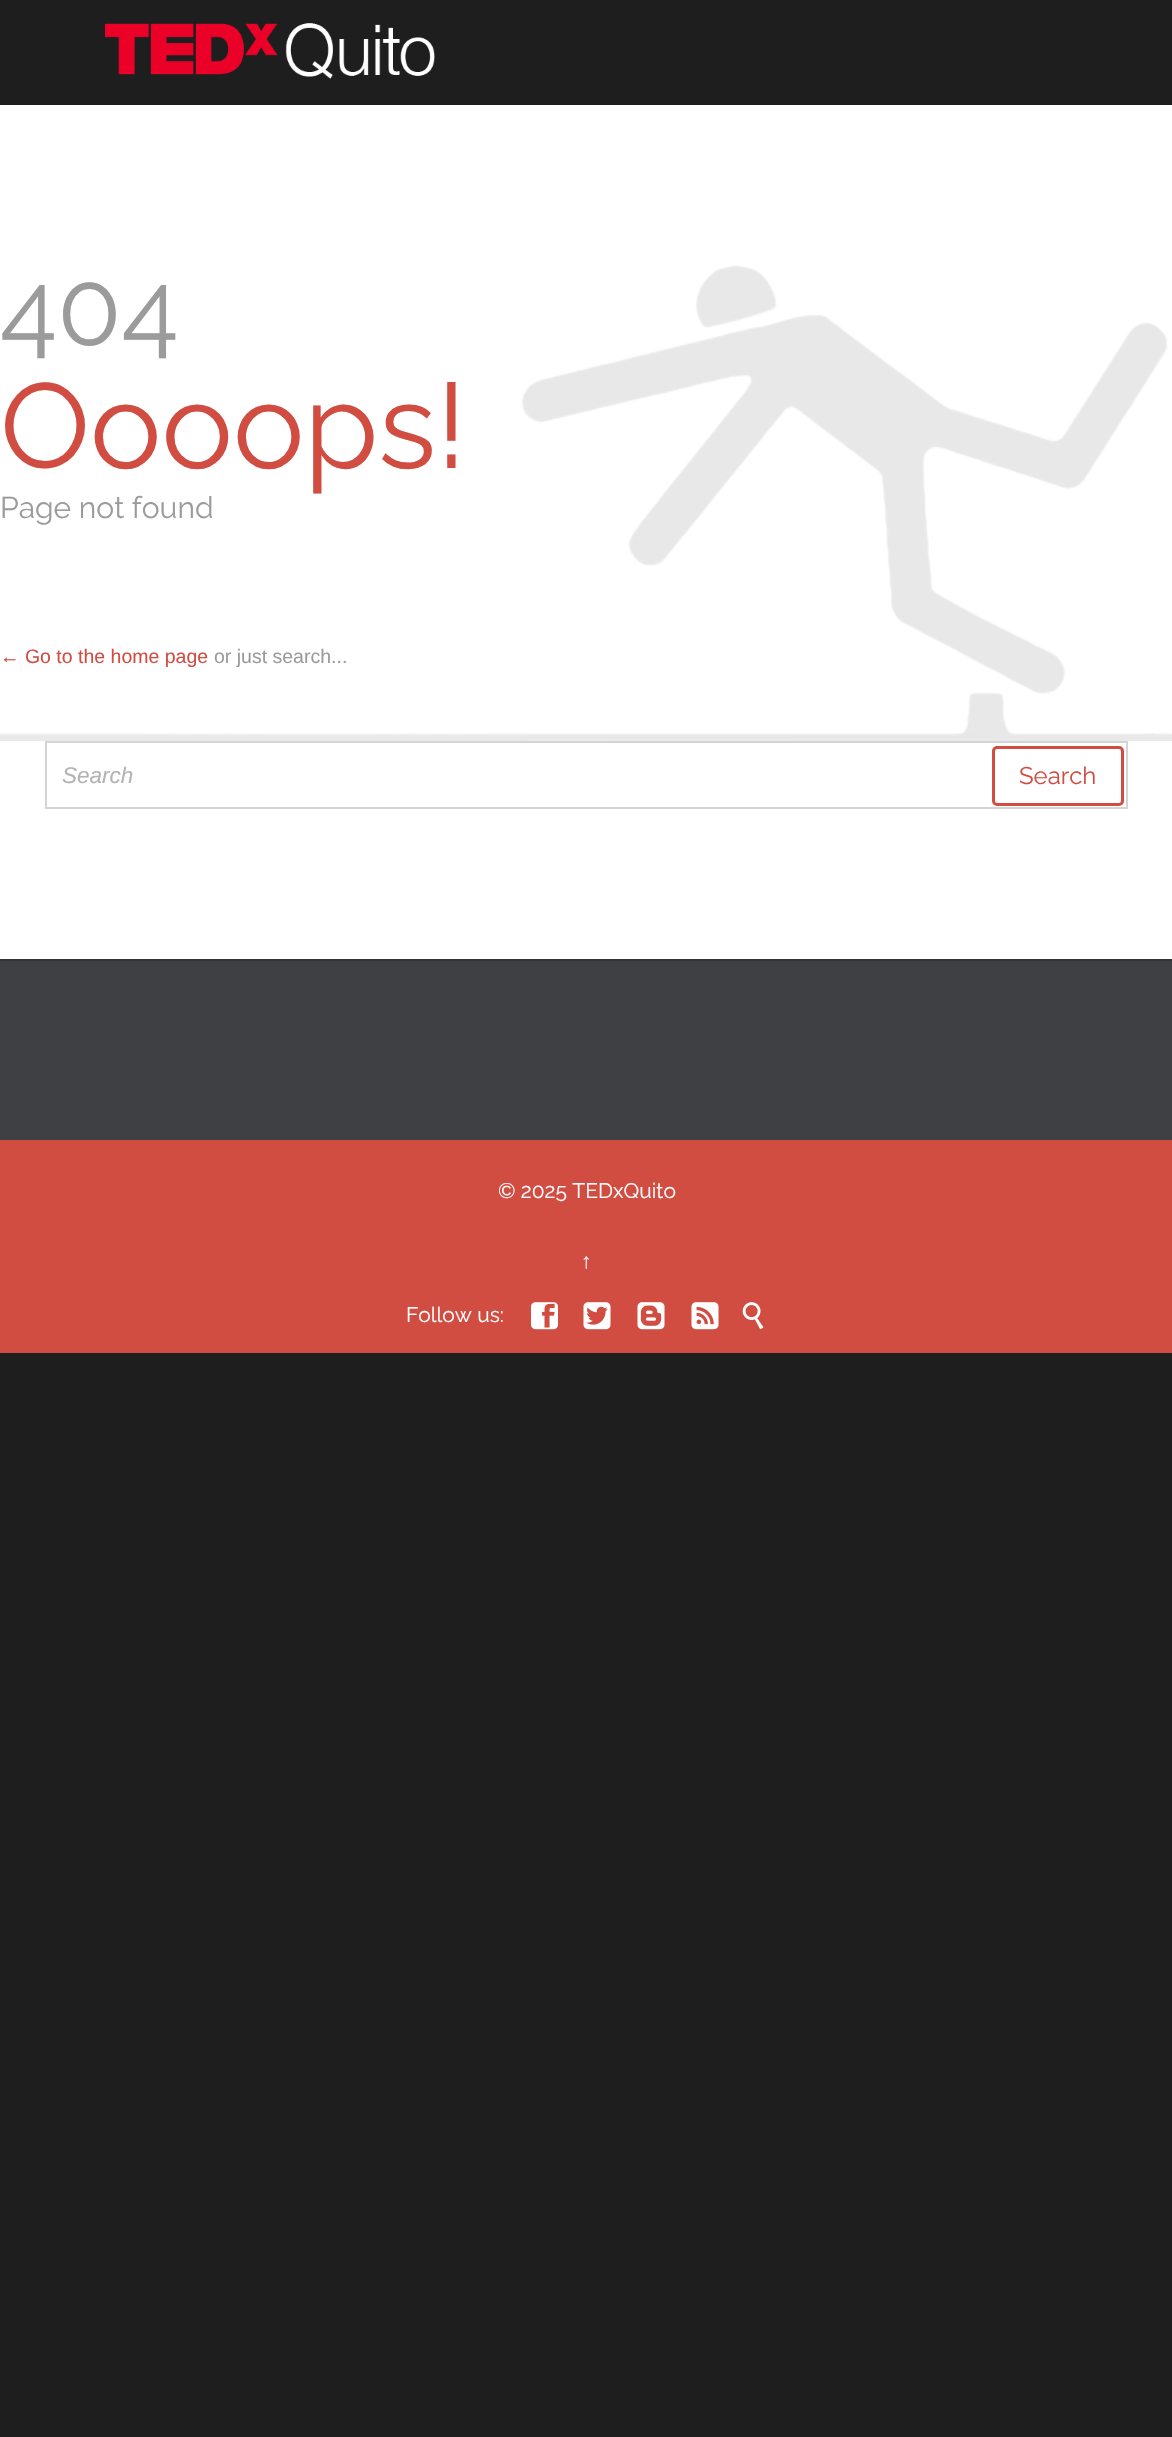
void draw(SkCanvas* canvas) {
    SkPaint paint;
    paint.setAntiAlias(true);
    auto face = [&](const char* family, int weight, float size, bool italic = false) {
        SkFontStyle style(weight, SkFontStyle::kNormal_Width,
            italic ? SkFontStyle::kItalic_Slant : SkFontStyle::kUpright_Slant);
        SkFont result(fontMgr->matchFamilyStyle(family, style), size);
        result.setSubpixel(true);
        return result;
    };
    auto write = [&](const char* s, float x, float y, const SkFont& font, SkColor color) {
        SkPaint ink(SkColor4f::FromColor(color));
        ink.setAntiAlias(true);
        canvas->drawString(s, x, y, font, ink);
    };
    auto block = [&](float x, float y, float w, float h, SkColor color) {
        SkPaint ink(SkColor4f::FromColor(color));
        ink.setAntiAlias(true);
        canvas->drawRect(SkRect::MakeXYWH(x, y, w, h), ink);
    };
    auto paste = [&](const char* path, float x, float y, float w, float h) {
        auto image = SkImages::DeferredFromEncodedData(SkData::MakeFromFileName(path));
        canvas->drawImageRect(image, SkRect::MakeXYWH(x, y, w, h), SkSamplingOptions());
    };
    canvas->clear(SkColorSetRGB(30, 30, 30));
    paste("pic1.png", 105, 23, 330, 56);
    block(0, 105, 1172, 854, SK_ColorWHITE);
    paste("pic2.png", 0, 265, 1172, 476);
    auto kFont1 = face("Raleway", 400, 105);
    write("404", 0, 345, kFont1, SkColorSetRGB(155, 155, 155));
    auto kFont2 = face("Raleway", 400, 120);
    write("Oooops!", 0, 468, kFont2, SkColorSetRGB(209, 77, 66));
    auto kFont3 = face("Raleway", 400, 30);
    write("Page not found", 0, 518, kFont3, SkColorSetRGB(155, 155, 155));
    auto kFont4 = face("Liberation Sans", 400, 19.5f);
    write("← Go to the home page", 0, 663, kFont4, SkColorSetRGB(209, 77, 66));
    write("or just search...", 214, 663, kFont4, SkColorSetRGB(155, 155, 155));
    paint.setStyle(SkPaint::kStroke_Style);
    paint.setStrokeWidth(2);
    paint.setColor(SkColorSetRGB(212, 212, 212));
    canvas->drawRect(SkRect::MakeXYWH(46, 742, 1081, 66), paint);
    auto kFont5 = face("Liberation Sans", 400, 22.5f, true);
    write("Search", 62, 783, kFont5, SkColorSetRGB(179, 179, 179));
    paint.setStrokeWidth(3);
    paint.setColor(SkColorSetRGB(209, 77, 66));
    canvas->drawRoundRect(SkRect::MakeXYWH(993.5f, 747.5f, 129, 57), 3.5f, 3.5f, paint);
    auto kFont6 = face("Raleway", 400, 24);
    write("Search", 1019, 784, kFont6, SkColorSetRGB(209, 77, 66));
    block(0, 961, 1172, 179, SkColorSetRGB(62, 64, 67));
    block(0, 959, 1172, 2, SkColorSetRGB(50, 51, 54));
    block(0, 1140, 1172, 213, SkColorSetRGB(209, 77, 66));
    auto kFont7 = face("Raleway", 400, 21);
    write("© 2025 TEDxQuito", 498, 1198, kFont7, SK_ColorWHITE);
    auto kFont8 = face("Liberation Serif", 400, 21);
    write("↑", 581, 1268, kFont8, SK_ColorWHITE);
    write("Follow us:", 406, 1322, kFont7, SK_ColorWHITE);
    paste("pic3.png", 531, 1302, 27, 28);
    paste("pic4.png", 583, 1302, 28, 28);
    paste("pic5.png", 637, 1302, 28, 28);
    paste("pic6.png", 691, 1302, 28, 28);
    paste("pic7.png", 742, 1302, 22, 28);
}
